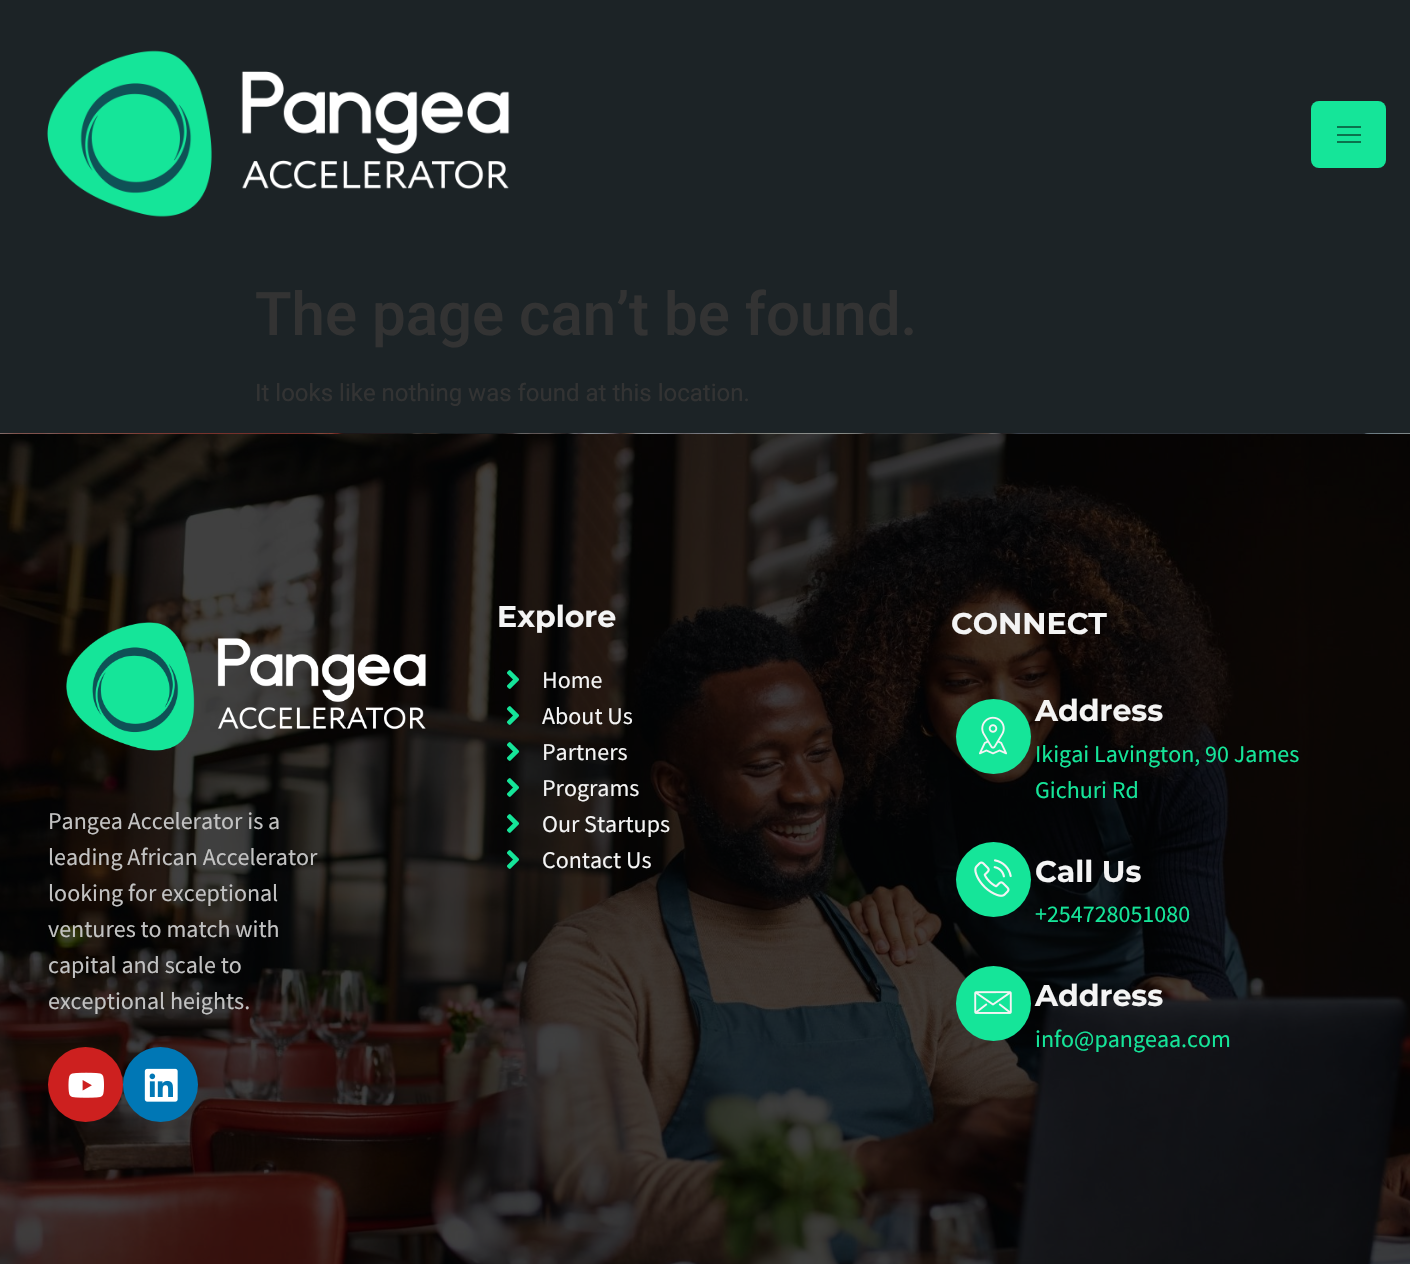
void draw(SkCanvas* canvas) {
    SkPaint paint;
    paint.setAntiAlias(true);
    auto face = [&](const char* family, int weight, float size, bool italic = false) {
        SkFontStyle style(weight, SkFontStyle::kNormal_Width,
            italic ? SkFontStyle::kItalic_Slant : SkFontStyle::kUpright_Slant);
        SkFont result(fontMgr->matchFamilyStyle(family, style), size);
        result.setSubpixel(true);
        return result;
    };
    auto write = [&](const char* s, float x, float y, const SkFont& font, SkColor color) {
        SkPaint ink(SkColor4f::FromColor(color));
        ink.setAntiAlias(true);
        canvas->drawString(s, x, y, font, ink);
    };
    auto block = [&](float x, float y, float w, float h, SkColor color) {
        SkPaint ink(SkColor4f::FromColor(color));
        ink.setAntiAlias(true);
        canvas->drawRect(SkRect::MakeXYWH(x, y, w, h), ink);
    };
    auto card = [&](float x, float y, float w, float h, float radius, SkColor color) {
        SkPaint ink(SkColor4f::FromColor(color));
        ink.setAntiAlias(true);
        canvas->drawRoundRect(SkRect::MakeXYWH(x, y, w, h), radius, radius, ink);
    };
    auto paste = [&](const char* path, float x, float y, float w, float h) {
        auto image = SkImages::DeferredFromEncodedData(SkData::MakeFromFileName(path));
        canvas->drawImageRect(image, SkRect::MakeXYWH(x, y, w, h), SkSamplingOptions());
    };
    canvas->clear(SkColorSetRGB(28, 35, 38));
    paste("pic1.png", 47, 50, 463, 167);
    card(1311, 101, 75, 67, 8, SkColorSetRGB(21, 229, 153));
    block(1337, 126, 24, 2, SkColorSetRGB(11, 115, 77));
    block(1337, 134, 24, 2, SkColorSetRGB(11, 115, 77));
    block(1337, 141, 24, 2, SkColorSetRGB(11, 115, 77));
    auto kFont1 = face("Roboto", 500, 60);
    write("The page can’t be found.", 255, 335, kFont1, SkColorSetRGB(51, 51, 51));
    auto kFont2 = face("Roboto", 400, 24);
    write("It looks like nothing was found at this location.", 255, 401, kFont2, SkColorSetRGB(51, 51, 51));
    paste("pic2.png", 0, 433, 1410, 831);
    paste("pic3.png", 66, 622, 360, 129);
    auto kFont3 = face("Source Sans Pro", 400, 24);
    write("Pangea Accelerator is a", 48, 829, kFont3, SkColorSetRGB(194, 194, 194));
    write("leading African Accelerator", 48, 865, kFont3, SkColorSetRGB(194, 194, 194));
    write("looking for exceptional", 48, 901, kFont3, SkColorSetRGB(194, 194, 194));
    write("ventures to match with", 48, 937, kFont3, SkColorSetRGB(194, 194, 194));
    write("capital and scale to", 48, 973, kFont3, SkColorSetRGB(194, 194, 194));
    write("exceptional heights.", 48, 1009, kFont3, SkColorSetRGB(194, 194, 194));
    paint.setColor(SkColorSetRGB(205, 32, 31));
    canvas->drawCircle(85.5f, 1084.5f, 37.5f, paint);
    paste("pic4.png", 68, 1072, 36, 26);
    paint.setColor(SkColorSetRGB(0, 119, 181));
    canvas->drawCircle(160.5f, 1084.5f, 37.5f, paint);
    paste("pic5.png", 144, 1068, 34, 34);
    auto kFont4 = face("Montserrat", 700, 30);
    write("Explore", 497, 627, kFont4, SkColorSetRGB(244, 244, 244));
    paste("pic6.png", 507, 670, 12, 19);
    write("Home", 542, 688, kFont3, SkColorSetRGB(244, 244, 244));
    paste("pic7.png", 507, 706, 12, 19);
    write("About Us", 542, 724, kFont3, SkColorSetRGB(244, 244, 244));
    paste("pic8.png", 507, 742, 12, 19);
    write("Partners", 542, 760, kFont3, SkColorSetRGB(244, 244, 244));
    paste("pic9.png", 507, 778, 12, 19);
    write("Programs", 542, 796, kFont3, SkColorSetRGB(244, 244, 244));
    paste("pic10.png", 507, 814, 12, 19);
    write("Our Startups", 542, 832, kFont3, SkColorSetRGB(244, 244, 244));
    paste("pic11.png", 507, 850, 12, 19);
    write("Contact Us", 542, 868, kFont3, SkColorSetRGB(244, 244, 244));
    write("CONNECT", 951, 634, kFont4, SkColorSetRGB(244, 244, 244));
    paint.setColor(SkColorSetRGB(21, 229, 153));
    canvas->drawCircle(993.5f, 736.5f, 37.5f, paint);
    paste("pic12.png", 979, 716, 28, 39);
    write("Address", 1035, 721, kFont4, SkColorSetRGB(244, 244, 244));
    write("Ikigai Lavington, 90 James", 1035, 762, kFont3, SkColorSetRGB(21, 229, 153));
    write("Gichuri Rd", 1035, 798, kFont3, SkColorSetRGB(21, 229, 153));
    canvas->drawCircle(993.5f, 879.5f, 37.5f, paint);
    paste("pic13.png", 974, 859, 38, 38);
    write("Call Us", 1035, 882, kFont4, SkColorSetRGB(244, 244, 244));
    write("+254728051080", 1035, 922, kFont3, SkColorSetRGB(21, 229, 153));
    canvas->drawCircle(993.5f, 1003.5f, 37.5f, paint);
    paste("pic14.png", 974, 991, 38, 23);
    write("Address", 1035, 1006, kFont4, SkColorSetRGB(244, 244, 244));
    write("info@pangeaa.com", 1035, 1047, kFont3, SkColorSetRGB(21, 229, 153));
}
